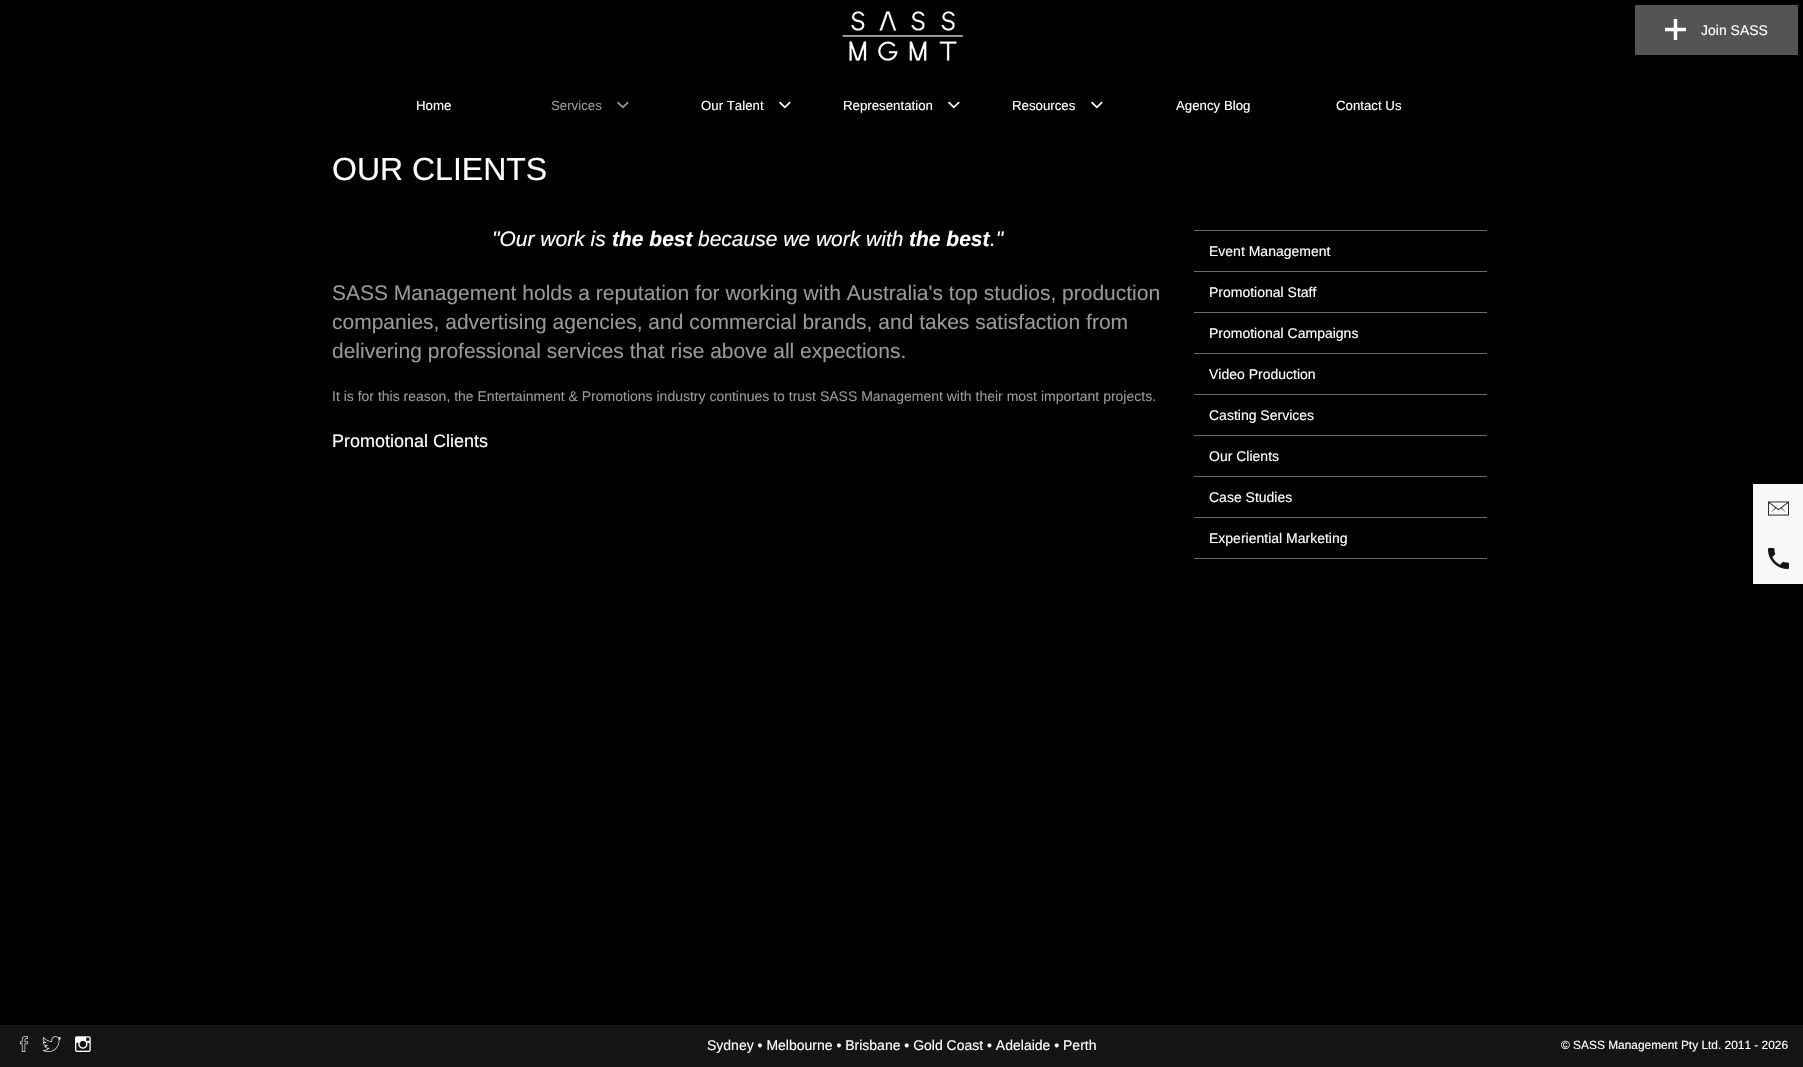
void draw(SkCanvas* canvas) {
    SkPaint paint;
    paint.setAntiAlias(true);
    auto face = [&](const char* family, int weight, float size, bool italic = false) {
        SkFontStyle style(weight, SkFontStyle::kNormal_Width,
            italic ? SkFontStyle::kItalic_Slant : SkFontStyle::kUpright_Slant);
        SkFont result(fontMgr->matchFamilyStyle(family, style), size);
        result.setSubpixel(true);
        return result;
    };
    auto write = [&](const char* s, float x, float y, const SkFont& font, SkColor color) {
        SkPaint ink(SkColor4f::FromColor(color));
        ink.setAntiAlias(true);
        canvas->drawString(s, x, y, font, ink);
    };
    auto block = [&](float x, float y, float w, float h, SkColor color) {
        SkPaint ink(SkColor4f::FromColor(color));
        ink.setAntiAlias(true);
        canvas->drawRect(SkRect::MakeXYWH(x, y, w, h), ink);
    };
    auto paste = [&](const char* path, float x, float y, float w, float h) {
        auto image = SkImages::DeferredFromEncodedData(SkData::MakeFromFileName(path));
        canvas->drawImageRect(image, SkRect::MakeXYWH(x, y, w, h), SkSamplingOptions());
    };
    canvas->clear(SK_ColorBLACK);
    paste("pic1.png", 842, 11, 121, 50);
    block(1635, 5, 163, 50, SkColorSetRGB(84, 84, 84));
    paste("pic2.png", 1665, 19, 21, 21);
    auto kFont1 = face("Liberation Sans", 400, 14);
    write("Join SASS", 1701, 35, kFont1, SK_ColorWHITE);
    auto kFont2 = face("Liberation Sans", 400, 13.25f);
    write("Home", 416, 110, kFont2, SK_ColorWHITE);
    write("Services", 551, 110, kFont2, SkColorSetRGB(153, 153, 153));
    paste("pic3.png", 617, 101, 12, 8);
    write("Our Talent", 701, 110, kFont2, SK_ColorWHITE);
    paste("pic4.png", 779, 101, 12, 8);
    write("Representation", 843, 110, kFont2, SK_ColorWHITE);
    paste("pic4.png", 948, 101, 12, 8);
    write("Resources", 1012, 110, kFont2, SK_ColorWHITE);
    paste("pic4.png", 1091, 101, 12, 8);
    write("Agency Blog", 1176, 110, kFont2, SK_ColorWHITE);
    write("Contact Us", 1336, 110, kFont2, SK_ColorWHITE);
    auto kFont3 = face("Liberation Sans", 400, 32);
    write("OUR CLIENTS", 332, 180, kFont3, SK_ColorWHITE);
    auto kFont4 = face("Liberation Sans", 400, 21, true);
    write("\"Our work is", 492, 246, kFont4, SK_ColorWHITE);
    auto kFont5 = face("Liberation Sans", 700, 21, true);
    write("the best", 612, 246, kFont5, SK_ColorWHITE);
    write("because we work with", 698, 246, kFont4, SK_ColorWHITE);
    write("the best", 909, 246, kFont5, SK_ColorWHITE);
    write(".\"", 990, 246, kFont4, SK_ColorWHITE);
    auto kFont6 = face("Liberation Sans", 400, 21);
    write("SASS Management holds a reputation for working with Australia's top studios, production", 332, 300, kFont6, SkColorSetRGB(153, 153, 153));
    write("companies, advertising agencies, and commercial brands, and takes satisfaction from", 332, 329, kFont6, SkColorSetRGB(153, 153, 153));
    write("delivering professional services that rise above all expections.", 332, 358, kFont6, SkColorSetRGB(153, 153, 153));
    write("It is for this reason, the Entertainment & Promotions industry continues to trust SASS Management with their most important projects.", 332, 401, kFont1, SkColorSetRGB(153, 153, 153));
    auto kFont7 = face("Liberation Sans", 400, 18);
    write("Promotional Clients", 332, 447, kFont7, SK_ColorWHITE);
    block(1194, 230, 293, 1, SkColorSetRGB(106, 106, 106));
    block(1194, 271, 293, 1, SkColorSetRGB(106, 106, 106));
    write("Event Management", 1209, 256, kFont1, SK_ColorWHITE);
    block(1194, 312, 293, 1, SkColorSetRGB(106, 106, 106));
    write("Promotional Staff", 1209, 297, kFont1, SK_ColorWHITE);
    block(1194, 353, 293, 1, SkColorSetRGB(106, 106, 106));
    write("Promotional Campaigns", 1209, 338, kFont1, SK_ColorWHITE);
    block(1194, 394, 293, 1, SkColorSetRGB(106, 106, 106));
    write("Video Production", 1209, 379, kFont1, SK_ColorWHITE);
    block(1194, 435, 293, 1, SkColorSetRGB(106, 106, 106));
    write("Casting Services", 1209, 420, kFont1, SK_ColorWHITE);
    block(1194, 476, 293, 1, SkColorSetRGB(106, 106, 106));
    write("Our Clients", 1209, 461, kFont1, SK_ColorWHITE);
    block(1194, 517, 293, 1, SkColorSetRGB(106, 106, 106));
    write("Case Studies", 1209, 502, kFont1, SK_ColorWHITE);
    block(1194, 558, 293, 1, SkColorSetRGB(106, 106, 106));
    write("Experiential Marketing", 1209, 543, kFont1, SK_ColorWHITE);
    block(1753, 484, 50, 100, SkColorSetRGB(248, 248, 248));
    paste("pic5.png", 1768, 501, 21, 15);
    paste("pic6.png", 1768, 548, 21, 21);
    block(0, 1025, 1803, 42, SkColorSetRGB(20, 20, 20));
    paste("pic7.png", 20, 1036, 8, 16);
    paste("pic8.png", 42, 1036, 20, 16);
    paste("pic9.png", 75, 1036, 16, 16);
    write("Sydney • Melbourne • Brisbane • Gold Coast • Adelaide • Perth", 707, 1050, kFont1, SK_ColorWHITE);
    auto kFont8 = face("Liberation Sans", 400, 11.9f);
    write("© SASS Management Pty Ltd. 2011 - 2026", 1561, 1049, kFont8, SK_ColorWHITE);
}
